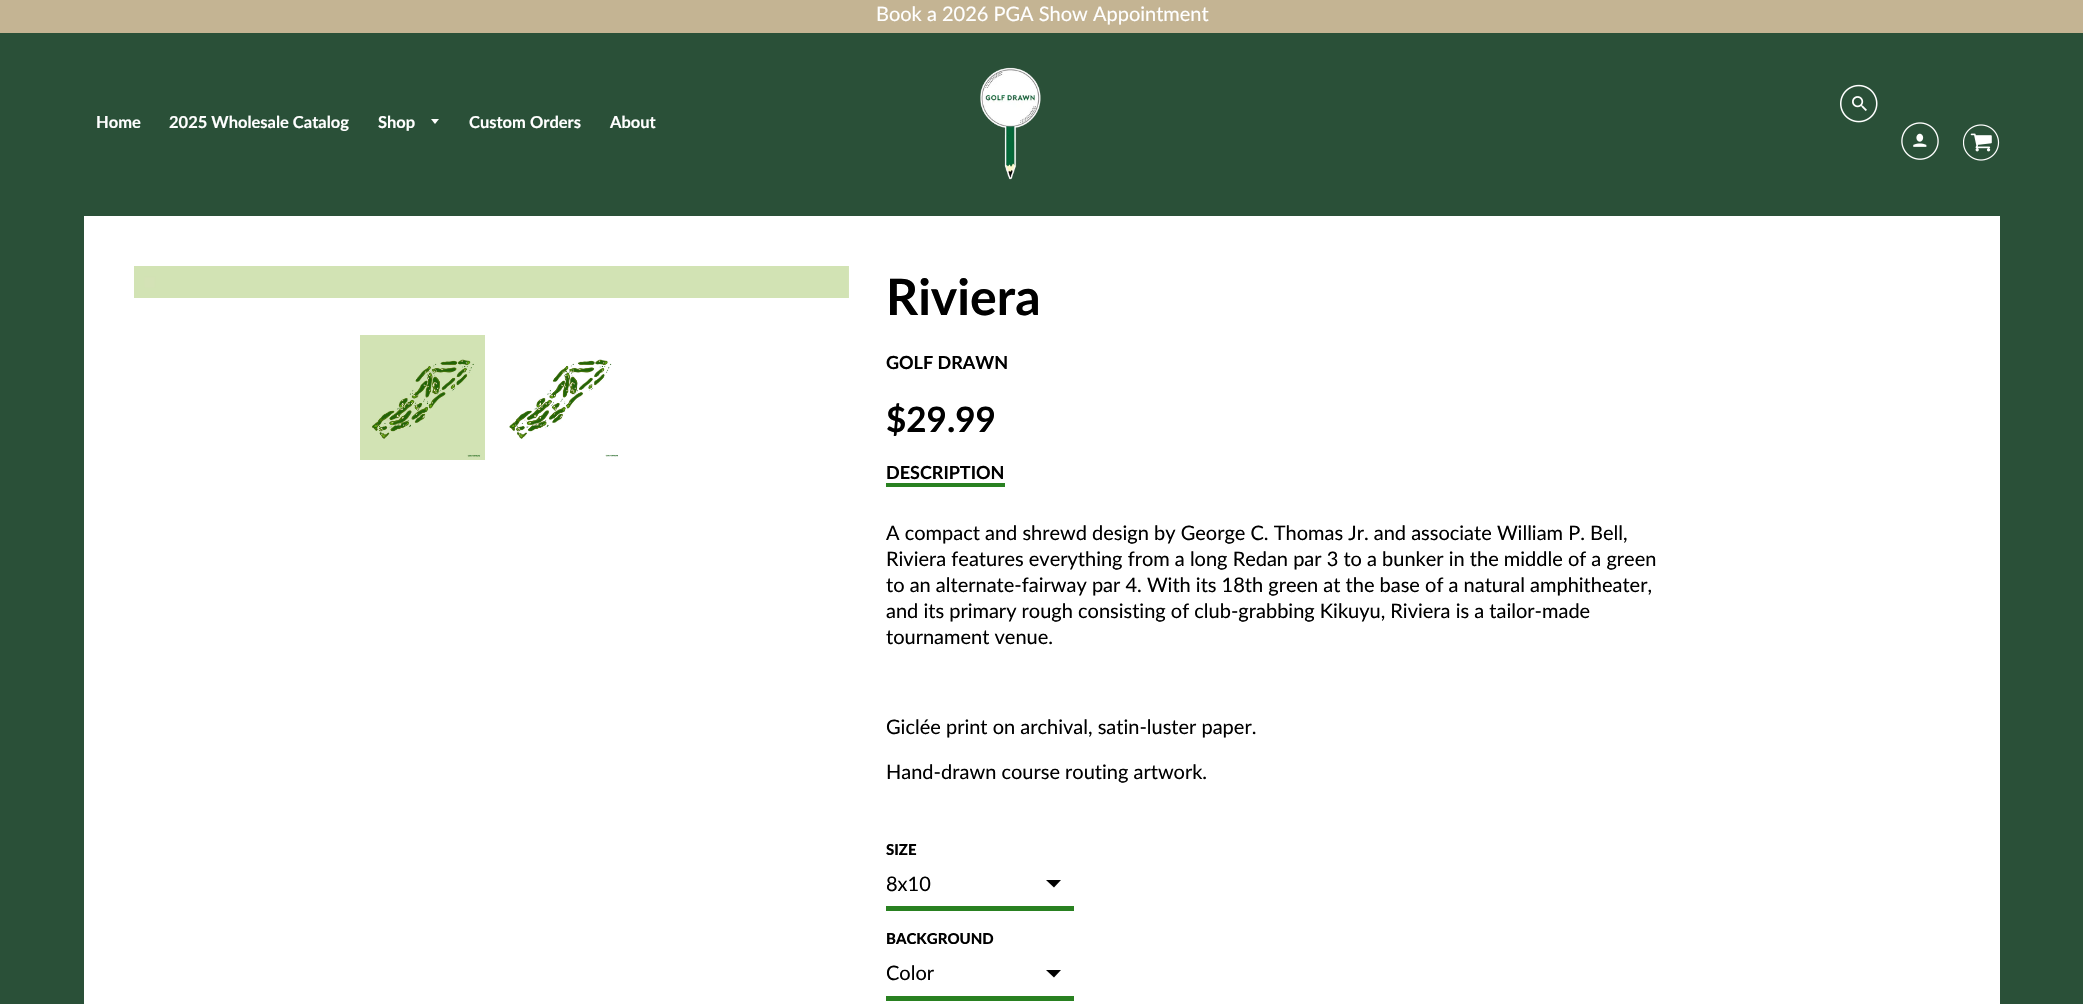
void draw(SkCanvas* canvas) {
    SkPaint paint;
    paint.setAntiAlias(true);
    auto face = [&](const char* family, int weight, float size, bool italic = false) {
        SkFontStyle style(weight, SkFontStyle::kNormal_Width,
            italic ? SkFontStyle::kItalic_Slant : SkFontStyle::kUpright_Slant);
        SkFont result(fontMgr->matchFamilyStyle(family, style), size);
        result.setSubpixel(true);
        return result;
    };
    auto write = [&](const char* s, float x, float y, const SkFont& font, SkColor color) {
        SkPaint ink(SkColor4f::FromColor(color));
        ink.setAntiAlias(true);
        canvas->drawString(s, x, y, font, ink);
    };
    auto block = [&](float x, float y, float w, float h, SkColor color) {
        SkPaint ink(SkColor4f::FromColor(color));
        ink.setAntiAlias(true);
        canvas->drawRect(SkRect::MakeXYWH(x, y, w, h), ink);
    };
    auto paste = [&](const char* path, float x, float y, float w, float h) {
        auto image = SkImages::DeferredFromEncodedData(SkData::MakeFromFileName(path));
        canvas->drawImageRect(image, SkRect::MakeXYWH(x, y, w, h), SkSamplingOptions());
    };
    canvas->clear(SkColorSetRGB(42, 80, 56));
    block(0, 0, 2083, 33, SkColorSetRGB(196, 180, 147));
    auto kFont1 = face("Lato", 400, 20);
    write("Book a 2026 PGA Show Appointment", 876, 21, kFont1, SK_ColorWHITE);
    auto kFont2 = face("Lato", 700, 16.5f);
    write("Home", 96, 128, kFont2, SK_ColorWHITE);
    write("2025 Wholesale Catalog", 169, 128, kFont2, SK_ColorWHITE);
    write("Shop", 378, 128, kFont2, SK_ColorWHITE);
    paint.setColor(SK_ColorWHITE);
    canvas->drawPath(SkPathBuilder().moveTo(431, 119).lineTo(435, 124).lineTo(439, 119).close().detach(), paint);
    write("Custom Orders", 469, 128, kFont2, SK_ColorWHITE);
    write("About", 610, 128, kFont2, SK_ColorWHITE);
    paste("pic1.png", 980, 67, 61, 113);
    paste("pic2.png", 1840, 84, 38, 39);
    paste("pic3.png", 1901, 122, 38, 38);
    paste("pic4.png", 1963, 124, 37, 37);
    block(84, 216, 1916, 788, SK_ColorWHITE);
    paste("pic5.png", 134, 266, 715, 32);
    paste("pic6.png", 360, 335, 125, 125);
    paste("pic7.png", 509, 359, 109, 98);
    auto kFont3 = face("Lato", 700, 50);
    write("Riviera", 886, 315, kFont3, SK_ColorBLACK);
    auto kFont4 = face("Lato", 700, 18);
    write("GOLF DRAWN", 886, 369, kFont4, SK_ColorBLACK);
    auto kFont5 = face("Lato", 700, 35);
    write("$29.99", 886, 432, kFont5, SK_ColorBLACK);
    block(886, 483, 119, 4, SkColorSetRGB(41, 129, 33));
    write("DESCRIPTION", 886, 479, kFont4, SK_ColorBLACK);
    write("A compact and shrewd design by George C. Thomas Jr. and associate William P. Bell,", 886, 540, kFont1, SK_ColorBLACK);
    write("Riviera features everything from a long Redan par 3 to a bunker in the middle of a green", 886, 566, kFont1, SK_ColorBLACK);
    write("to an alternate-fairway par 4. With its 18th green at the base of a natural amphitheater,", 886, 592, kFont1, SK_ColorBLACK);
    write("and its primary rough consisting of club-grabbing Kikuyu, Riviera is a tailor-made", 886, 618, kFont1, SK_ColorBLACK);
    write("tournament venue.", 886, 644, kFont1, SK_ColorBLACK);
    write("Giclée print on archival, satin-luster paper.", 886, 734, kFont1, SK_ColorBLACK);
    write("Hand-drawn course routing artwork.", 886, 779, kFont1, SK_ColorBLACK);
    auto kFont6 = face("Lato", 900, 15);
    write("SIZE", 886, 855, kFont6, SK_ColorBLACK);
    paint.setColor(SK_ColorBLACK);
    canvas->drawPath(SkPathBuilder().moveTo(1046, 880).lineTo(1061, 880).lineTo(1054, 887.5f).close().detach(), paint);
    block(886, 906, 188, 5, SkColorSetRGB(41, 129, 33));
    write("8x10", 886, 891, kFont1, SK_ColorBLACK);
    write("BACKGROUND", 886, 944, kFont6, SK_ColorBLACK);
    canvas->drawPath(SkPathBuilder().moveTo(1046, 970).lineTo(1061, 970).lineTo(1054, 977.5f).close().detach(), paint);
    block(886, 996, 188, 5, SkColorSetRGB(41, 129, 33));
    write("Color", 886, 980, kFont1, SK_ColorBLACK);
}
